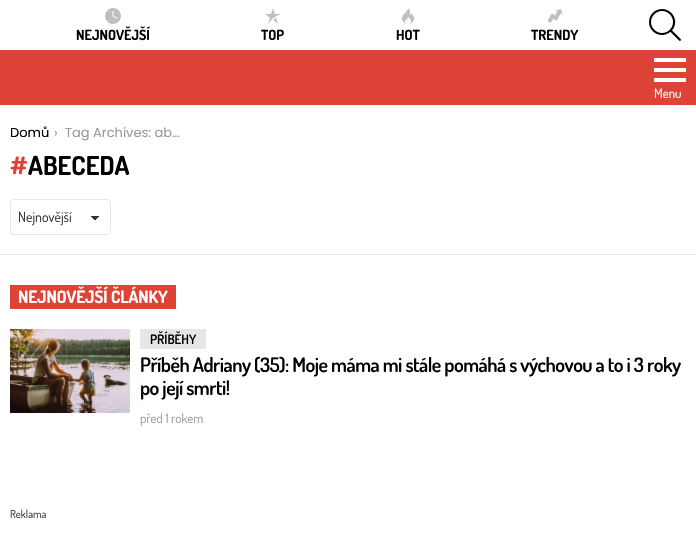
void draw(SkCanvas* canvas) {
    SkPaint paint;
    paint.setAntiAlias(true);
    auto face = [&](const char* family, int weight, float size, bool italic = false) {
        SkFontStyle style(weight, SkFontStyle::kNormal_Width,
            italic ? SkFontStyle::kItalic_Slant : SkFontStyle::kUpright_Slant);
        SkFont result(fontMgr->matchFamilyStyle(family, style), size);
        result.setSubpixel(true);
        return result;
    };
    auto write = [&](const char* s, float x, float y, const SkFont& font, SkColor color) {
        SkPaint ink(SkColor4f::FromColor(color));
        ink.setAntiAlias(true);
        canvas->drawString(s, x, y, font, ink);
    };
    auto writeSpaced = [&](const char* s, float x, float y, const SkFont& font, const SkPaint& ink, float letter, float word) {
        std::vector<SkGlyphID> glyphs(font.countText(s, strlen(s), SkTextEncoding::kUTF8));
        std::vector<float> xs(glyphs.size());
        font.textToGlyphs(s, strlen(s), SkTextEncoding::kUTF8, glyphs);
        font.getXPos(glyphs, xs, x);
        float extra = 0;
        for (size_t i = 0; i < glyphs.size(); i++) {
            xs[i] += extra;
            extra += letter + word * (glyphs[i] == font.unicharToGlyph(' '));
        }
        canvas->drawTextBlob(SkTextBlob::MakeFromPosHGlyphs(glyphs, xs, y, font), 0, 0, ink);
    };
    auto block = [&](float x, float y, float w, float h, SkColor color) {
        SkPaint ink(SkColor4f::FromColor(color));
        ink.setAntiAlias(true);
        canvas->drawRect(SkRect::MakeXYWH(x, y, w, h), ink);
    };
    auto paste = [&](const char* path, float x, float y, float w, float h) {
        auto image = SkImages::DeferredFromEncodedData(SkData::MakeFromFileName(path));
        canvas->drawImageRect(image, SkRect::MakeXYWH(x, y, w, h), SkSamplingOptions());
    };
    canvas->clear(SkColorSetRGB(230, 230, 230));
    block(0, 0, 696, 50, SK_ColorWHITE);
    paste("pic1.png", 105, 8, 16, 16);
    auto kFont1 = face("Dosis", 700, 14);
    write("NEJNOVĚJŠÍ", 76, 40, kFont1, SK_ColorBLACK);
    paste("pic2.png", 265, 8, 16, 16);
    write("TOP", 261, 40, kFont1, SK_ColorBLACK);
    paste("pic3.png", 402, 8, 12, 16);
    write("HOT", 396, 40, kFont1, SK_ColorBLACK);
    paste("pic4.png", 547, 9, 16, 14);
    write("TRENDY", 531, 40, kFont1, SK_ColorBLACK);
    paste("pic5.png", 649, 9, 32, 32);
    block(0, 50, 696, 55, SkColorSetRGB(221, 68, 55));
    paste("pic6.png", 654, 58, 32, 24);
    auto kFont2 = face("Dosis", 400, 13);
    write("Menu", 654, 98, kFont2, SK_ColorWHITE);
    block(0, 105, 696, 149, SK_ColorWHITE);
    auto kFont3 = face("Poppins", 400, 13);
    write("Domů", 10, 137, kFont3, SK_ColorBLACK);
    write("›", 54, 137, kFont3, SkColorSetRGB(153, 153, 153));
    write("Tag Archives: ab…", 65, 137, kFont3, SkColorSetRGB(153, 153, 153));
    auto kFont4 = face("Dosis", 700, 26);
    write("#", 10, 175, kFont4, SkColorSetRGB(221, 68, 55));
    write("ABECEDA", 28, 175, kFont4, SK_ColorBLACK);
    {
        const SkColor colors[] = {SkColorSetRGB(51, 51, 51), SK_ColorWHITE};
        const float stops[] = {0.5f, 0.5f};
        const SkPoint ends[] = {{95, 216}, {100, 220}};
        paint.setShader(SkGradientShader::MakeLinear(ends, colors, stops, 2, SkTileMode::kClamp));
        paint.setAlpha(255);
    }
    canvas->drawRect(SkRect::MakeXYWH(95, 216, 5, 4), paint);
    {
        const SkColor colors[] = {SK_ColorWHITE, SkColorSetRGB(51, 51, 51)};
        const float stops[] = {0.5f, 0.5f};
        const SkPoint ends[] = {{90, 220}, {95, 216}};
        paint.setShader(SkGradientShader::MakeLinear(ends, colors, stops, 2, SkTileMode::kClamp));
        paint.setAlpha(255);
    }
    canvas->drawRect(SkRect::MakeXYWH(90, 216, 5, 4), paint);
    paint.setStyle(SkPaint::kStroke_Style);
    paint.setStrokeWidth(1);
    paint.setShader(nullptr);
    paint.setColor(SkColorSetRGB(230, 230, 230));
    canvas->drawRoundRect(SkRect::MakeXYWH(10.5f, 199.5f, 100, 35), 3.5f, 3.5f, paint);
    auto kFont5 = face("Dosis", 400, 14);
    write("Nejnovější", 18, 222, kFont5, SkColorSetRGB(51, 51, 51));
    block(0, 255, 696, 289, SK_ColorWHITE);
    block(10, 285, 166, 24, SkColorSetRGB(221, 68, 55));
    auto kFont6 = face("Dosis", 700, 17);
    write("NEJNOVĚJŠÍ ČLÁNKY", 18, 303, kFont6, SK_ColorWHITE);
    paste("pic7.png", 10, 329, 120, 84);
    block(140, 329, 66, 20, SkColorSetRGB(230, 230, 230));
    auto kFont7 = face("Dosis", 600, 13);
    write("PŘÍBĚHY", 150, 344, kFont7, SK_ColorBLACK);
    auto kFont8 = face("Dosis", 600, 20);
    paint.setStyle(SkPaint::kFill_Style);
    paint.setColor(SK_ColorBLACK);
    writeSpaced("Příběh Adriany (35): Moje máma mi stále pomáhá s výchovou a to i 3 roky", 140, 372, kFont8, paint, -0.5f, 0);
    writeSpaced("po její smrti!", 140, 395, kFont8, paint, -0.5f, 0);
    write("před 1 rokem", 140, 423, kFont2, SkColorSetRGB(153, 153, 153));
    auto kFont9 = face("Dosis", 400, 11);
    write("Reklama", 10, 518, kFont9, SkColorSetRGB(51, 51, 51));
}
